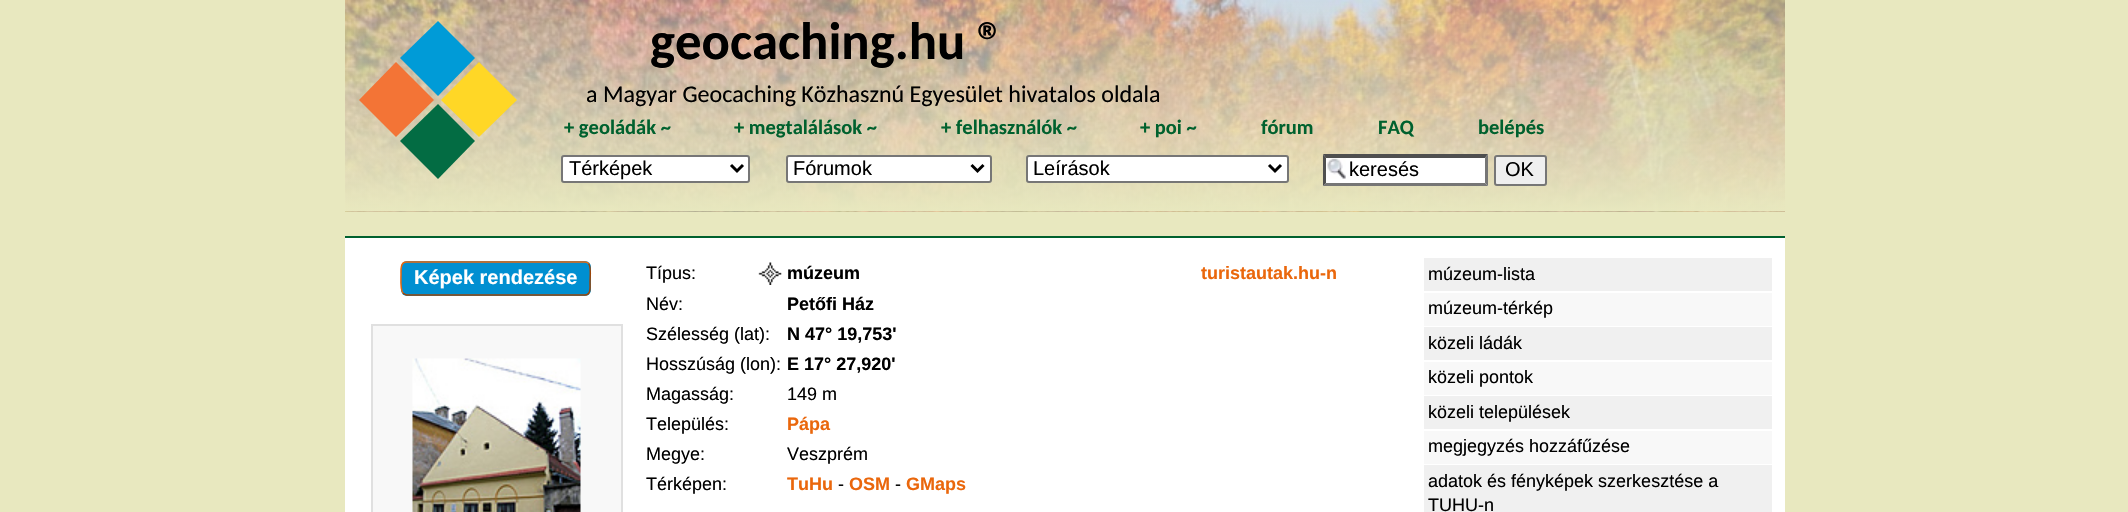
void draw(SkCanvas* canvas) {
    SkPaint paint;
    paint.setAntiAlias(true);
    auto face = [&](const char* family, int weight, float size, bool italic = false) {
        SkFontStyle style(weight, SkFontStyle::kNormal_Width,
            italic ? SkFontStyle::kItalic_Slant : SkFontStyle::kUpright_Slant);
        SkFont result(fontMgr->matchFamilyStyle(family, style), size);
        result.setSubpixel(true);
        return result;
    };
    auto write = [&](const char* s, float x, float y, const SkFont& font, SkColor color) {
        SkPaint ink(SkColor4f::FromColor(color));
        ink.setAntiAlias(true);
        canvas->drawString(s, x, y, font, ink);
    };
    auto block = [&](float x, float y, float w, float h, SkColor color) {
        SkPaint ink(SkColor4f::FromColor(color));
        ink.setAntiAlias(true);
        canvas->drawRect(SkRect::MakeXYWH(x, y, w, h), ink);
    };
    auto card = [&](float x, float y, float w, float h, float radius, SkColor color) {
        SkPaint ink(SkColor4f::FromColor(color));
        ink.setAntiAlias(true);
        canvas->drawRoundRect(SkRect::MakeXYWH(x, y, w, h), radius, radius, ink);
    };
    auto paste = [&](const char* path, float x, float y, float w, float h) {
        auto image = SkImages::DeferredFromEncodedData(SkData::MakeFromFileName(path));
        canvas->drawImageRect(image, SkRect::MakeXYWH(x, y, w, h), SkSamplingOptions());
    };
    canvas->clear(SkColorSetRGB(232, 232, 191));
    paste("pic1.png", 345, 0, 1440, 212);
    paint.setColor(SkColorSetRGB(243, 116, 54));
    canvas->drawPath(SkPathBuilder().moveTo(434, 100).lineTo(396, 137).lineTo(359, 100).lineTo(396, 62).close().detach(), paint);
    paint.setColor(SkColorSetRGB(0, 155, 215));
    canvas->drawPath(SkPathBuilder().moveTo(475, 58).lineTo(438, 96).lineTo(400, 58).lineTo(438, 21).close().detach(), paint);
    paint.setColor(SkColorSetRGB(3, 108, 67));
    canvas->drawPath(SkPathBuilder().moveTo(475, 141).lineTo(438, 179).lineTo(400, 141).lineTo(438, 104).close().detach(), paint);
    paint.setColor(SkColorSetRGB(255, 215, 38));
    canvas->drawPath(SkPathBuilder().moveTo(517, 100).lineTo(479, 137).lineTo(441, 100).lineTo(479, 62).close().detach(), paint);
    auto kFont1 = face("Carlito", 700, 52.75f);
    write("geocaching.hu ®", 650, 59, kFont1, SK_ColorBLACK);
    auto kFont2 = face("Carlito", 400, 24);
    write("a Magyar Geocaching Közhasznú Egyesület hivatalos oldala", 586, 102, kFont2, SK_ColorBLACK);
    auto kFont3 = face("Carlito", 700, 20.5f);
    write("+ geoládák ~", 564, 134, kFont3, SkColorSetRGB(0, 97, 46));
    write("+ megtalálások ~", 734, 134, kFont3, SkColorSetRGB(0, 97, 46));
    write("+ felhasználók ~", 941, 134, kFont3, SkColorSetRGB(0, 97, 46));
    write("+ poi ~", 1140, 134, kFont3, SkColorSetRGB(0, 97, 46));
    write("fórum", 1261, 134, kFont3, SkColorSetRGB(0, 97, 46));
    write("FAQ", 1378, 134, kFont3, SkColorSetRGB(0, 97, 46));
    write("belépés", 1478, 134, kFont3, SkColorSetRGB(0, 97, 46));
    paint.setColor(SK_ColorWHITE);
    canvas->drawRoundRect(SkRect::MakeXYWH(562, 156, 187, 26), 2, 2, paint);
    paint.setStyle(SkPaint::kStroke_Style);
    paint.setStrokeWidth(2);
    paint.setColor(SkColorSetRGB(118, 118, 118));
    canvas->drawRoundRect(SkRect::MakeXYWH(562, 156, 187, 26), 2, 2, paint);
    paint.setStrokeWidth(3);
    paint.setColor(SK_ColorBLACK);
    canvas->drawPath(SkPathBuilder().moveTo(731, 165).lineTo(737, 171).lineTo(743, 165).detach(), paint);
    auto kFont4 = face("Liberation Sans", 400, 20);
    write("Térképek", 569, 175, kFont4, SK_ColorBLACK);
    paint.setStyle(SkPaint::kFill_Style);
    paint.setColor(SK_ColorWHITE);
    canvas->drawRoundRect(SkRect::MakeXYWH(787, 156, 204, 26), 2, 2, paint);
    paint.setStyle(SkPaint::kStroke_Style);
    paint.setStrokeWidth(2);
    paint.setColor(SkColorSetRGB(118, 118, 118));
    canvas->drawRoundRect(SkRect::MakeXYWH(787, 156, 204, 26), 2, 2, paint);
    paint.setStrokeWidth(3);
    paint.setColor(SK_ColorBLACK);
    canvas->drawPath(SkPathBuilder().moveTo(971.5f, 165).lineTo(977.5f, 171).lineTo(983.5f, 165).detach(), paint);
    write("Fórumok", 793, 175, kFont4, SK_ColorBLACK);
    paint.setStyle(SkPaint::kFill_Style);
    paint.setColor(SK_ColorWHITE);
    canvas->drawRoundRect(SkRect::MakeXYWH(1027, 156, 261, 26), 2, 2, paint);
    paint.setStyle(SkPaint::kStroke_Style);
    paint.setStrokeWidth(2);
    paint.setColor(SkColorSetRGB(118, 118, 118));
    canvas->drawRoundRect(SkRect::MakeXYWH(1027, 156, 261, 26), 2, 2, paint);
    paint.setStrokeWidth(3);
    paint.setColor(SK_ColorBLACK);
    canvas->drawPath(SkPathBuilder().moveTo(1269, 165).lineTo(1275, 171).lineTo(1281, 165).detach(), paint);
    write("Leírások", 1033, 175, kFont4, SK_ColorBLACK);
    block(1323, 155, 165, 31, SK_ColorWHITE);
    paste("pic2.png", 1327, 158, 19, 21);
    paint.setStyle(SkPaint::kFill_Style);
    paint.setColor(SkColorSetRGB(79, 79, 79));
    canvas->drawPath(SkPathBuilder().moveTo(1323, 154).lineTo(1488, 154).lineTo(1485, 158).lineTo(1326, 158).close().detach(), paint);
    paint.setColor(SkColorSetRGB(118, 118, 118));
    canvas->drawPath(SkPathBuilder().moveTo(1488, 154.5f).lineTo(1488, 186).lineTo(1485, 183).lineTo(1485, 157.5f).close().detach(), paint);
    canvas->drawPath(SkPathBuilder().moveTo(1488, 186).lineTo(1323, 186).lineTo(1326, 183).lineTo(1485, 183).close().detach(), paint);
    paint.setColor(SkColorSetRGB(79, 79, 79));
    canvas->drawPath(SkPathBuilder().moveTo(1323, 186).lineTo(1323, 154.5f).lineTo(1326, 157.5f).lineTo(1326, 183).close().detach(), paint);
    write("keresés", 1349, 176, kFont4, SK_ColorBLACK);
    paint.setColor(SkColorSetRGB(239, 239, 239));
    canvas->drawRoundRect(SkRect::MakeXYWH(1495, 156, 51, 29), 2, 2, paint);
    paint.setStyle(SkPaint::kStroke_Style);
    paint.setStrokeWidth(2);
    paint.setColor(SkColorSetRGB(118, 118, 118));
    canvas->drawRoundRect(SkRect::MakeXYWH(1495, 156, 51, 29), 2, 2, paint);
    write("OK", 1505, 176, kFont4, SK_ColorBLACK);
    block(345, 238, 1440, 274, SK_ColorWHITE);
    block(345, 236, 1440, 2, SkColorSetRGB(0, 97, 46));
    card(401, 261, 190, 35, 6, SkColorSetRGB(0, 143, 209));
    paint.setStrokeWidth(1.5f);
    paint.setColor(SkColorSetRGB(156, 69, 8));
    canvas->drawPath(SkPathBuilder().moveTo(588.5f, 263.5f).cubicTo(591.5f, 266.5f, 590, 278, 590, 282).cubicTo(590, 286, 591.5f, 294.5f, 585, 295).lineTo(406.5f, 295).cubicTo(405, 294.5f, 404, 294, 403, 293).detach(), paint);
    paint.setColor(SkColorSetRGB(234, 103, 12));
    canvas->drawPath(SkPathBuilder().moveTo(403, 293).cubicTo(400, 290, 401, 278.5f, 401, 274.5f).cubicTo(401, 270.5f, 400, 262, 406.5f, 262).lineTo(585, 262).cubicTo(586.5f, 262, 587.5f, 262.5f, 588.5f, 263.5f).detach(), paint);
    auto kFont5 = face("Liberation Sans", 700, 20);
    write("Képek rendezése", 414, 284, kFont5, SK_ColorWHITE);
    paint.setStyle(SkPaint::kFill_Style);
    paint.setColor(SkColorSetRGB(248, 248, 248));
    canvas->drawRect(SkRect::MakeXYWH(372, 325, 250, 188), paint);
    paint.setStyle(SkPaint::kStroke_Style);
    paint.setStrokeWidth(2);
    paint.setColor(SkColorSetRGB(224, 224, 224));
    canvas->drawRect(SkRect::MakeXYWH(372, 325, 250, 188), paint);
    paste("pic3.png", 412, 358, 169, 154);
    auto kFont6 = face("Liberation Sans", 400, 18);
    write("Típus:", 646, 279, kFont6, SK_ColorBLACK);
    paste("pic4.png", 758, 262, 24, 23);
    auto kFont7 = face("Liberation Sans", 700, 18);
    write("múzeum", 787, 279, kFont7, SK_ColorBLACK);
    write("turistautak.hu-n", 1201, 279, kFont7, SkColorSetRGB(234, 103, 12));
    write("Név:", 646, 310, kFont6, SK_ColorBLACK);
    write("Petőfi Ház", 787, 310, kFont7, SK_ColorBLACK);
    write("Szélesség (lat):", 646, 340, kFont6, SK_ColorBLACK);
    write("N 47° 19,753'", 787, 340, kFont7, SK_ColorBLACK);
    write("Hosszúság (lon):", 646, 370, kFont6, SK_ColorBLACK);
    write("E 17° 27,920'", 787, 370, kFont7, SK_ColorBLACK);
    write("Magasság:", 646, 400, kFont6, SK_ColorBLACK);
    write("149 m", 787, 400, kFont6, SK_ColorBLACK);
    write("Település:", 646, 430, kFont6, SK_ColorBLACK);
    write("Pápa", 787, 430, kFont7, SkColorSetRGB(234, 103, 12));
    write("Megye:", 646, 460, kFont6, SK_ColorBLACK);
    write("Veszprém", 787, 460, kFont6, SK_ColorBLACK);
    write("Térképen:", 646, 490, kFont6, SK_ColorBLACK);
    write("TuHu", 787, 490, kFont7, SkColorSetRGB(234, 103, 12));
    write("-", 838, 490, kFont6, SK_ColorBLACK);
    write("OSM", 849, 490, kFont7, SkColorSetRGB(234, 103, 12));
    write("-", 895, 490, kFont6, SK_ColorBLACK);
    write("GMaps", 906, 490, kFont7, SkColorSetRGB(234, 103, 12));
    block(1424, 258, 348, 33, SkColorSetRGB(240, 240, 240));
    write("múzeum-lista", 1428, 280, kFont6, SK_ColorBLACK);
    block(1424, 293, 348, 33, SkColorSetRGB(248, 248, 248));
    write("múzeum-térkép", 1428, 314, kFont6, SK_ColorBLACK);
    block(1424, 327, 348, 33, SkColorSetRGB(240, 240, 240));
    write("közeli ládák", 1428, 349, kFont6, SK_ColorBLACK);
    block(1424, 362, 348, 33, SkColorSetRGB(248, 248, 248));
    write("közeli pontok", 1428, 383, kFont6, SK_ColorBLACK);
    block(1424, 396, 348, 33, SkColorSetRGB(240, 240, 240));
    write("közeli települések", 1428, 418, kFont6, SK_ColorBLACK);
    block(1424, 431, 348, 33, SkColorSetRGB(248, 248, 248));
    write("megjegyzés hozzáfűzése", 1428, 452, kFont6, SK_ColorBLACK);
    block(1424, 465, 348, 47, SkColorSetRGB(240, 240, 240));
    write("adatok és fényképek szerkesztése a", 1428, 487, kFont6, SK_ColorBLACK);
    write("TUHU-n", 1428, 511, kFont6, SK_ColorBLACK);
}
